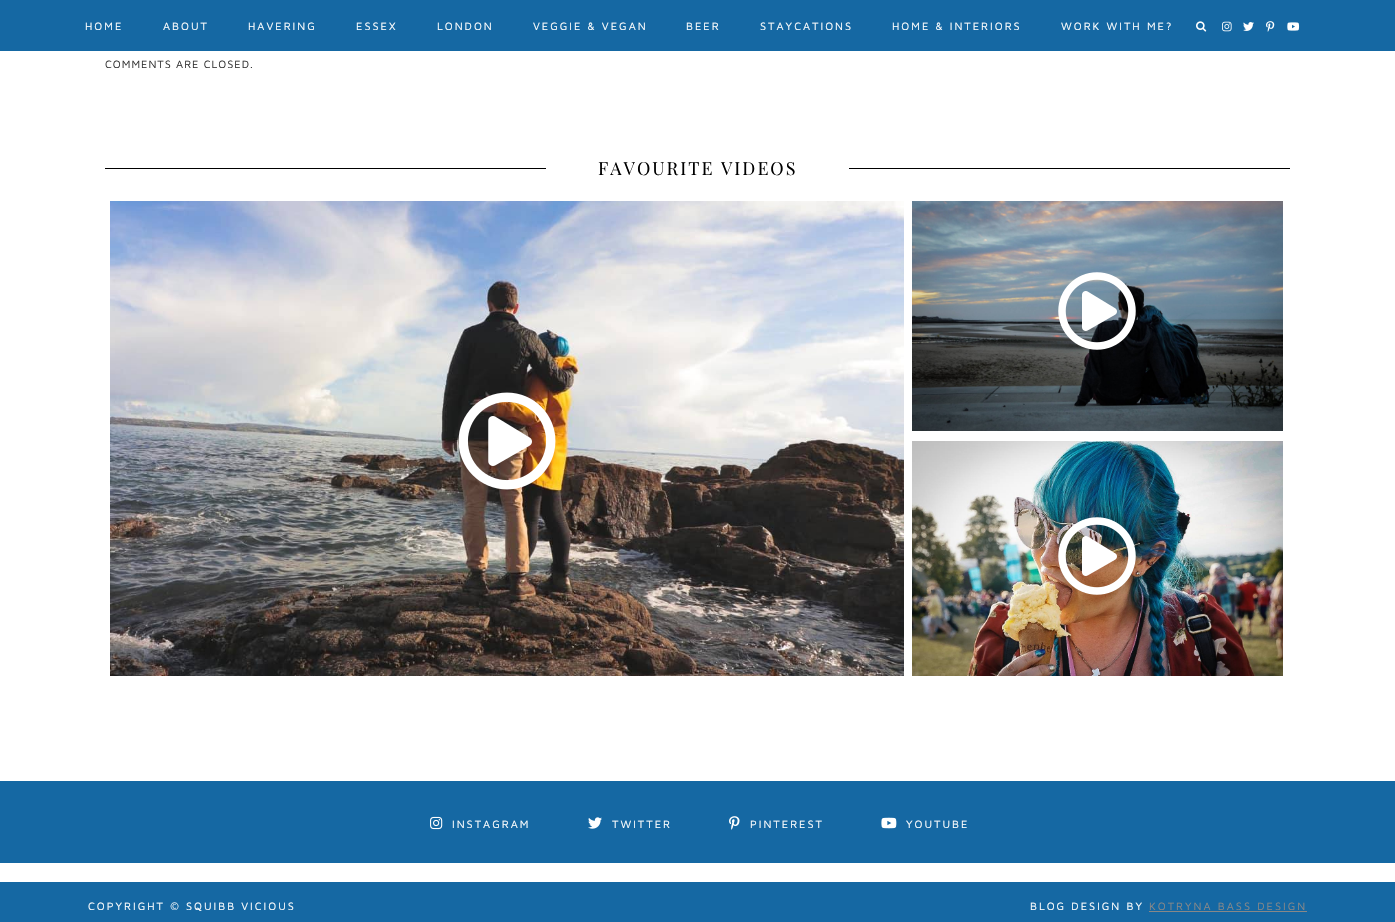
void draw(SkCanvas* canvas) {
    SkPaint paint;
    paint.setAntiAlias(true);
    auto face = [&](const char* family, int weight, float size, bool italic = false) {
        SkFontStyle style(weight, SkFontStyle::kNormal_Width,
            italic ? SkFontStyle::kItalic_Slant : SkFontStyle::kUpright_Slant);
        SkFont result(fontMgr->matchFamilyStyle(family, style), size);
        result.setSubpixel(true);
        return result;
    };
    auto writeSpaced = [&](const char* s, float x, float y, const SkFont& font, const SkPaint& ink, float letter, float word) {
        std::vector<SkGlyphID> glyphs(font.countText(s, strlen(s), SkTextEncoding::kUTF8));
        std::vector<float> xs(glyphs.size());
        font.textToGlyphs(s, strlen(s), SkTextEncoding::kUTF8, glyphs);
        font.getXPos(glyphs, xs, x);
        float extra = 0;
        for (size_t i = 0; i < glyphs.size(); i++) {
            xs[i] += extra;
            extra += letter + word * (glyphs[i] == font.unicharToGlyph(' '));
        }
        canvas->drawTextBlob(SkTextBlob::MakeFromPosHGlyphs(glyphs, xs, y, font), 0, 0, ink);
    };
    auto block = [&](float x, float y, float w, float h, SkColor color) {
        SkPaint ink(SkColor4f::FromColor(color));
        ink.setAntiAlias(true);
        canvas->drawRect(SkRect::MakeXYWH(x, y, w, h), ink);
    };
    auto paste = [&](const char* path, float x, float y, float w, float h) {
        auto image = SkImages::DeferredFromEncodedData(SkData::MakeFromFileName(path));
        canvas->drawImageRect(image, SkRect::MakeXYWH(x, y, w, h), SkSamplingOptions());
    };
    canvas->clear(SK_ColorWHITE);
    block(0, 0, 1395, 51, SkColorSetRGB(21, 104, 163));
    auto kFont1 = face("Maven Pro", 400, 11);
    paint.setColor(SK_ColorWHITE);
    writeSpaced("HOME", 85, 30, kFont1, paint, 2, 0);
    writeSpaced("ABOUT", 163, 30, kFont1, paint, 2, 0);
    writeSpaced("HAVERING", 248, 30, kFont1, paint, 2, 0);
    writeSpaced("ESSEX", 356, 30, kFont1, paint, 2, 0);
    writeSpaced("LONDON", 437, 30, kFont1, paint, 2, 0);
    writeSpaced("VEGGIE & VEGAN", 533, 30, kFont1, paint, 2, 0);
    writeSpaced("BEER", 686, 30, kFont1, paint, 2, 0);
    writeSpaced("STAYCATIONS", 760, 30, kFont1, paint, 2, 0);
    writeSpaced("HOME & INTERIORS", 892, 30, kFont1, paint, 2, 0);
    writeSpaced("WORK WITH ME?", 1061, 30, kFont1, paint, 2, 0);
    paste("pic1.png", 1196, 21, 11, 11);
    paste("pic2.png", 1222, 21, 10, 11);
    paste("pic3.png", 1243, 22, 11, 9);
    paste("pic4.png", 1266, 21, 9, 11);
    paste("pic5.png", 1287, 22, 13, 9);
    paint.setColor(SkColorSetRGB(51, 51, 51));
    writeSpaced("COMMENTS ARE CLOSED.", 105, 68, kFont1, paint, 1, 0);
    block(105, 168, 1185, 1, SK_ColorBLACK);
    block(546, 168, 303, 1, SK_ColorWHITE);
    auto kFont2 = face("Playfair Display", 400, 18);
    paint.setColor(SK_ColorBLACK);
    writeSpaced("FAVOURITE VIDEOS", 598, 175, kFont2, paint, 2, 0);
    paste("pic6.png", 110, 201, 794, 475);
    paste("pic7.png", 458, 392, 98, 98);
    paste("pic8.png", 912, 201, 371, 230);
    paste("pic9.png", 1058, 272, 78, 78);
    paste("pic10.png", 912, 441, 371, 235);
    paste("pic11.png", 1058, 517, 78, 78);
    block(0, 781, 1395, 82, SkColorSetRGB(21, 104, 163));
    paste("pic12.png", 430, 816, 13, 14);
    paint.setColor(SK_ColorWHITE);
    writeSpaced("INSTAGRAM", 452, 828, kFont1, paint, 2, 0);
    paste("pic13.png", 588, 817, 14, 12);
    writeSpaced("TWITTER", 612, 828, kFont1, paint, 2, 0);
    paste("pic14.png", 729, 816, 11, 14);
    writeSpaced("PINTEREST", 750, 828, kFont1, paint, 2, 0);
    paste("pic15.png", 881, 817, 16, 12);
    writeSpaced("YOUTUBE", 906, 828, kFont1, paint, 2, 0);
    block(0, 882, 1395, 40, SkColorSetRGB(21, 104, 163));
    writeSpaced("COPYRIGHT © SQUIBB VICIOUS", 88, 910, kFont1, paint, 2, 0);
    writeSpaced("BLOG DESIGN BY", 1030, 910, kFont1, paint, 2, 0);
    paint.setColor(SkColorSetRGB(136, 136, 136));
    writeSpaced("KOTRYNA BASS DESIGN", 1149, 910, kFont1, paint, 2, 0);
    block(1149, 911, 158, 1, SkColorSetRGB(136, 136, 136));
}
